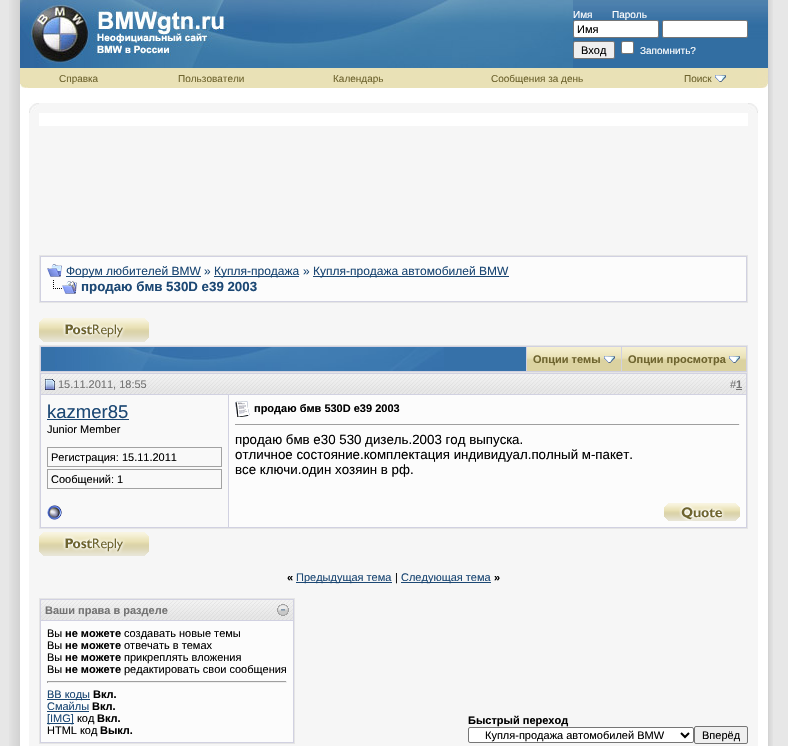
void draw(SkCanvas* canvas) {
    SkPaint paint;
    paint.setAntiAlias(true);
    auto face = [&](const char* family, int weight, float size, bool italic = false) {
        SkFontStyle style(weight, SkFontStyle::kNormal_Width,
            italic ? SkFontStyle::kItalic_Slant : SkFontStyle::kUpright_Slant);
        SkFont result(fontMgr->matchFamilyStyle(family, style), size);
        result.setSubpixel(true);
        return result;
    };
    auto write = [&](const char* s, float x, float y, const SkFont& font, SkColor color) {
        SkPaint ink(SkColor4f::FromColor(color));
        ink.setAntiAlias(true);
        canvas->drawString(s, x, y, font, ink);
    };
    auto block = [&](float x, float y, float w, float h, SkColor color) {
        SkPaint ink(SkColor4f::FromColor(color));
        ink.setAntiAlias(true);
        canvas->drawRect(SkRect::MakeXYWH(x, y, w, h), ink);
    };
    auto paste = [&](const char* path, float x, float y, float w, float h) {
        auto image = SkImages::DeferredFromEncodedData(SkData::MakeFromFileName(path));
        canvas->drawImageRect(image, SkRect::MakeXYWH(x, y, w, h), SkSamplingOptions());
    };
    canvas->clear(SkColorSetRGB(231, 231, 231));
    paste("pic1.png", 9, 0, 11, 746);
    block(20, 88, 748, 658, SK_ColorWHITE);
    paste("pic2.png", 573, 0, 195, 68);
    paste("pic3.png", 20, 0, 208, 68);
    paste("pic4.png", 228, 0, 345, 68);
    auto kFont1 = face("Liberation Sans", 400, 10);
    write("Имя", 573, 18, kFont1, SK_ColorWHITE);
    write("Пароль", 612, 18, kFont1, SK_ColorWHITE);
    paint.setColor(SK_ColorWHITE);
    canvas->drawRoundRect(SkRect::MakeXYWH(573.5f, 20.5f, 85, 17), 1.5f, 1.5f, paint);
    paint.setStyle(SkPaint::kStroke_Style);
    paint.setStrokeWidth(1);
    paint.setColor(SkColorSetRGB(118, 118, 118));
    canvas->drawRoundRect(SkRect::MakeXYWH(573.5f, 20.5f, 85, 17), 1.5f, 1.5f, paint);
    auto kFont2 = face("Liberation Sans", 400, 11);
    write("Имя", 577, 33, kFont2, SK_ColorBLACK);
    paint.setStyle(SkPaint::kFill_Style);
    paint.setColor(SK_ColorWHITE);
    canvas->drawRoundRect(SkRect::MakeXYWH(662.5f, 20.5f, 85, 17), 1.5f, 1.5f, paint);
    paint.setStyle(SkPaint::kStroke_Style);
    paint.setColor(SkColorSetRGB(118, 118, 118));
    canvas->drawRoundRect(SkRect::MakeXYWH(662.5f, 20.5f, 85, 17), 1.5f, 1.5f, paint);
    paint.setStyle(SkPaint::kFill_Style);
    paint.setColor(SkColorSetRGB(239, 239, 239));
    canvas->drawRoundRect(SkRect::MakeXYWH(573.5f, 41.5f, 41, 17), 1.5f, 1.5f, paint);
    paint.setStyle(SkPaint::kStroke_Style);
    paint.setColor(SkColorSetRGB(118, 118, 118));
    canvas->drawRoundRect(SkRect::MakeXYWH(573.5f, 41.5f, 41, 17), 1.5f, 1.5f, paint);
    write("Вход", 581, 54, kFont2, SK_ColorBLACK);
    paint.setStyle(SkPaint::kFill_Style);
    paint.setColor(SK_ColorWHITE);
    canvas->drawRoundRect(SkRect::MakeXYWH(621.5f, 41.5f, 12, 12), 1.5f, 1.5f, paint);
    paint.setStyle(SkPaint::kStroke_Style);
    paint.setColor(SkColorSetRGB(118, 118, 118));
    canvas->drawRoundRect(SkRect::MakeXYWH(621.5f, 41.5f, 12, 12), 1.5f, 1.5f, paint);
    write("Запомнить?", 640, 54, kFont1, SK_ColorWHITE);
    paste("pic5.png", 20, 68, 10, 20);
    block(30, 68, 727, 20, SkColorSetRGB(233, 225, 182));
    write("Справка", 59, 82, kFont1, SkColorSetRGB(110, 100, 47));
    write("Пользователи", 178, 82, kFont1, SkColorSetRGB(110, 100, 47));
    write("Календарь", 333, 82, kFont1, SkColorSetRGB(110, 100, 47));
    write("Сообщения за день", 491, 82, kFont1, SkColorSetRGB(110, 100, 47));
    write("Поиск", 684, 82, kFont1, SkColorSetRGB(110, 100, 47));
    paste("pic6.png", 715, 75, 11, 7);
    paste("pic7.png", 757, 68, 11, 20);
    paste("pic8.png", 29, 103, 10, 10);
    block(39, 103, 709, 10, SkColorSetRGB(246, 246, 246));
    paste("pic9.png", 748, 103, 11, 10);
    block(29, 113, 10, 633, SkColorSetRGB(246, 246, 246));
    block(39, 126, 709, 219, SkColorSetRGB(246, 246, 246));
    paint.setStyle(SkPaint::kFill_Style);
    paint.setColor(SkColorSetRGB(209, 209, 225));
    canvas->drawRect(SkRect::MakeXYWH(39.5f, 255.5f, 708, 47), paint);
    paint.setStyle(SkPaint::kStroke_Style);
    paint.setColor(SkColorSetRGB(229, 229, 229));
    canvas->drawRect(SkRect::MakeXYWH(39.5f, 255.5f, 708, 47), paint);
    block(41, 257, 705, 44, SkColorSetRGB(252, 252, 252));
    paste("pic10.png", 47, 264, 15, 13);
    block(66, 276, 135, 1, SkColorSetRGB(28, 72, 116));
    auto kFont3 = face("Liberation Sans", 400, 12);
    write("Форум любителей BMW", 66, 275, kFont3, SkColorSetRGB(28, 72, 116));
    write("»", 204, 275, kFont3, SkColorSetRGB(28, 72, 116));
    block(214, 276, 85, 1, SkColorSetRGB(28, 72, 116));
    write("Купля-продажа", 214, 275, kFont3, SkColorSetRGB(28, 72, 116));
    write("»", 303, 275, kFont3, SkColorSetRGB(28, 72, 116));
    block(313, 276, 196, 1, SkColorSetRGB(28, 72, 116));
    write("Купля-продажа автомобилей BMW", 313, 275, kFont3, SkColorSetRGB(28, 72, 116));
    paste("pic11.png", 53, 280, 24, 14);
    auto kFont4 = face("Liberation Sans", 700, 13.3f);
    write("продаю бмв 530D e39 2003", 81, 291, kFont4, SkColorSetRGB(28, 72, 116));
    paste("pic12.png", 39, 318, 110, 24);
    block(40, 346, 707, 26, SkColorSetRGB(209, 209, 225));
    block(39, 345, 709, 1, SkColorSetRGB(229, 229, 229));
    block(747, 345, 1, 27, SkColorSetRGB(229, 229, 229));
    block(39, 345, 1, 27, SkColorSetRGB(229, 229, 229));
    block(41, 347, 485, 24, SkColorSetRGB(54, 113, 169));
    paste("pic13.png", 55, 347, 389, 24);
    block(527, 360, 94, 11, SkColorSetRGB(219, 210, 160));
    paste("pic14.png", 527, 347, 94, 13);
    auto kFont5 = face("Liberation Sans", 700, 11);
    write("Опции темы", 533, 363, kFont5, SkColorSetRGB(110, 100, 47));
    paste("pic15.png", 604, 356, 11, 7);
    block(622, 360, 124, 11, SkColorSetRGB(219, 210, 160));
    paste("pic16.png", 622, 347, 124, 13);
    write("Опции просмотра", 628, 363, kFont5, SkColorSetRGB(110, 100, 47));
    paste("pic15.png", 729, 356, 11, 7);
    block(39, 529, 709, 217, SkColorSetRGB(246, 246, 246));
    canvas->drawRect(SkRect::MakeXYWH(39.5f, 372.5f, 708, 156), paint);
    paste("pic17.png", 41, 374, 188, 20);
    block(40, 373, 707, 1, SkColorSetRGB(209, 209, 225));
    block(40, 394, 189, 1, SkColorSetRGB(209, 209, 225));
    block(40, 373, 1, 124, SkColorSetRGB(209, 209, 225));
    paste("pic18.png", 45, 379, 10, 11);
    write("15.11.2011, 18:55", 58, 388, kFont2, SkColorSetRGB(115, 115, 115));
    paste("pic19.png", 229, 374, 517, 20);
    block(746, 373, 1, 155, SkColorSetRGB(209, 209, 225));
    block(229, 394, 518, 1, SkColorSetRGB(209, 209, 225));
    write("#", 730, 388, kFont2, SkColorSetRGB(115, 115, 115));
    write("1", 736, 388, kFont5, SkColorSetRGB(115, 115, 115));
    block(736, 389, 6, 1, SkColorSetRGB(115, 115, 115));
    block(41, 395, 187, 132, SkColorSetRGB(249, 249, 249));
    block(228, 395, 1, 133, SkColorSetRGB(209, 209, 225));
    auto kFont6 = face("Liberation Sans", 400, 18.5f);
    write("kazmer85", 47, 418, kFont6, SkColorSetRGB(28, 72, 116));
    block(47, 419, 82, 1, SkColorSetRGB(28, 72, 116));
    write("Junior Member", 47, 433, kFont2, SK_ColorBLACK);
    paint.setColor(SkColorSetRGB(162, 162, 162));
    canvas->drawRect(SkRect::MakeXYWH(47.5f, 447.5f, 174, 19), paint);
    write("Регистрация: 15.11.2011", 51, 461, kFont2, SK_ColorBLACK);
    canvas->drawRect(SkRect::MakeXYWH(47.5f, 469.5f, 174, 19), paint);
    write("Сообщений: 1", 51, 483, kFont2, SK_ColorBLACK);
    block(229, 395, 517, 132, SkColorSetRGB(252, 252, 252));
    paste("pic20.png", 235, 401, 15, 16);
    write("продаю бмв 530D e39 2003", 254, 412, kFont5, SK_ColorBLACK);
    block(235, 424, 505, 1, SkColorSetRGB(159, 159, 159));
    block(739, 424, 1, 1, SkColorSetRGB(238, 238, 238));
    auto kFont7 = face("Liberation Sans", 400, 13.3f);
    write("продаю бмв е30 530 дизель.2003 год выпуска.", 235, 444, kFont7, SK_ColorBLACK);
    write("отличное состояние.комплектация индивидуал.полный м-пакет.", 235, 459, kFont7, SK_ColorBLACK);
    write("все ключи.один хозяин в рф.", 235, 474, kFont7, SK_ColorBLACK);
    block(40, 527, 707, 1, SkColorSetRGB(209, 209, 225));
    block(40, 497, 1, 31, SkColorSetRGB(209, 209, 225));
    paste("pic21.png", 47, 505, 15, 15);
    paste("pic22.png", 664, 503, 76, 18);
    paste("pic12.png", 39, 532, 110, 24);
    write("«", 287, 581, kFont5, SK_ColorBLACK);
    block(296, 582, 96, 1, SkColorSetRGB(28, 72, 116));
    write("Предыдущая тема", 296, 581, kFont2, SkColorSetRGB(28, 72, 116));
    write("|", 395, 581, kFont2, SK_ColorBLACK);
    block(401, 582, 90, 1, SkColorSetRGB(28, 72, 116));
    write("Следующая тема", 401, 581, kFont2, SkColorSetRGB(28, 72, 116));
    write("»", 494, 581, kFont5, SK_ColorBLACK);
    paint.setStyle(SkPaint::kFill_Style);
    paint.setColor(SkColorSetRGB(209, 209, 225));
    canvas->drawRect(SkRect::MakeXYWH(39.5f, 598.5f, 255, 145), paint);
    paint.setStyle(SkPaint::kStroke_Style);
    paint.setColor(SkColorSetRGB(229, 229, 229));
    canvas->drawRect(SkRect::MakeXYWH(39.5f, 598.5f, 255, 145), paint);
    paste("pic23.png", 41, 600, 252, 20);
    write("Ваши права в разделе", 45, 614, kFont5, SkColorSetRGB(115, 115, 115));
    paste("pic24.png", 277, 604, 12, 12);
    block(41, 621, 252, 121, SkColorSetRGB(252, 252, 252));
    write("Вы", 47, 637, kFont2, SK_ColorBLACK);
    write("не можете", 65, 637, kFont5, SK_ColorBLACK);
    write("создавать новые темы", 124, 637, kFont2, SK_ColorBLACK);
    write("Вы", 47, 649, kFont2, SK_ColorBLACK);
    write("не можете", 65, 649, kFont5, SK_ColorBLACK);
    write("отвечать в темах", 124, 649, kFont2, SK_ColorBLACK);
    write("Вы", 47, 661, kFont2, SK_ColorBLACK);
    write("не можете", 65, 661, kFont5, SK_ColorBLACK);
    write("прикреплять вложения", 124, 661, kFont2, SK_ColorBLACK);
    write("Вы", 47, 673, kFont2, SK_ColorBLACK);
    write("не можете", 65, 673, kFont5, SK_ColorBLACK);
    write("редактировать свои сообщения", 124, 673, kFont2, SK_ColorBLACK);
    block(47, 681, 240, 1, SkColorSetRGB(159, 159, 159));
    block(286, 681, 1, 2, SkColorSetRGB(238, 238, 238));
    block(47, 682, 240, 1, SkColorSetRGB(238, 238, 238));
    block(47, 681, 1, 2, SkColorSetRGB(159, 159, 159));
    block(47, 699, 43, 1, SkColorSetRGB(28, 72, 116));
    write("BB коды", 47, 698, kFont2, SkColorSetRGB(28, 72, 116));
    write("Вкл.", 93, 698, kFont5, SK_ColorBLACK);
    write("Смайлы", 47, 710, kFont2, SkColorSetRGB(28, 72, 116));
    block(47, 711, 42, 1, SkColorSetRGB(28, 72, 116));
    write("Вкл.", 92, 710, kFont5, SK_ColorBLACK);
    block(47, 723, 27, 1, SkColorSetRGB(28, 72, 116));
    write("[IMG]", 47, 722, kFont2, SkColorSetRGB(28, 72, 116));
    write("код", 77, 722, kFont2, SK_ColorBLACK);
    write("Вкл.", 97, 722, kFont5, SK_ColorBLACK);
    write("HTML код", 47, 734, kFont2, SK_ColorBLACK);
    write("Выкл.", 100, 734, kFont5, SK_ColorBLACK);
    write("Быстрый переход", 468, 724, kFont5, SK_ColorBLACK);
    paint.setStyle(SkPaint::kFill_Style);
    paint.setColor(SK_ColorWHITE);
    canvas->drawRoundRect(SkRect::MakeXYWH(468.5f, 727.5f, 225, 15), 1.5f, 1.5f, paint);
    paint.setStyle(SkPaint::kStroke_Style);
    paint.setColor(SkColorSetRGB(118, 118, 118));
    canvas->drawRoundRect(SkRect::MakeXYWH(468.5f, 727.5f, 225, 15), 1.5f, 1.5f, paint);
    paint.setStrokeWidth(2);
    paint.setColor(SK_ColorBLACK);
    canvas->drawPath(SkPathBuilder().moveTo(681, 733).lineTo(685, 737).lineTo(689, 733).detach(), paint);
    write("Купля-продажа автомобилей BMW", 485, 739, kFont2, SK_ColorBLACK);
    paint.setStyle(SkPaint::kFill_Style);
    paint.setColor(SkColorSetRGB(239, 239, 239));
    canvas->drawRoundRect(SkRect::MakeXYWH(694.5f, 726.5f, 53, 17), 1.5f, 1.5f, paint);
    paint.setStyle(SkPaint::kStroke_Style);
    paint.setStrokeWidth(1);
    paint.setColor(SkColorSetRGB(118, 118, 118));
    canvas->drawRoundRect(SkRect::MakeXYWH(694.5f, 726.5f, 53, 17), 1.5f, 1.5f, paint);
    write("Вперёд", 702, 739, kFont2, SK_ColorBLACK);
    block(748, 113, 10, 633, SkColorSetRGB(246, 246, 246));
    paste("pic25.png", 768, 0, 5, 746);
}
